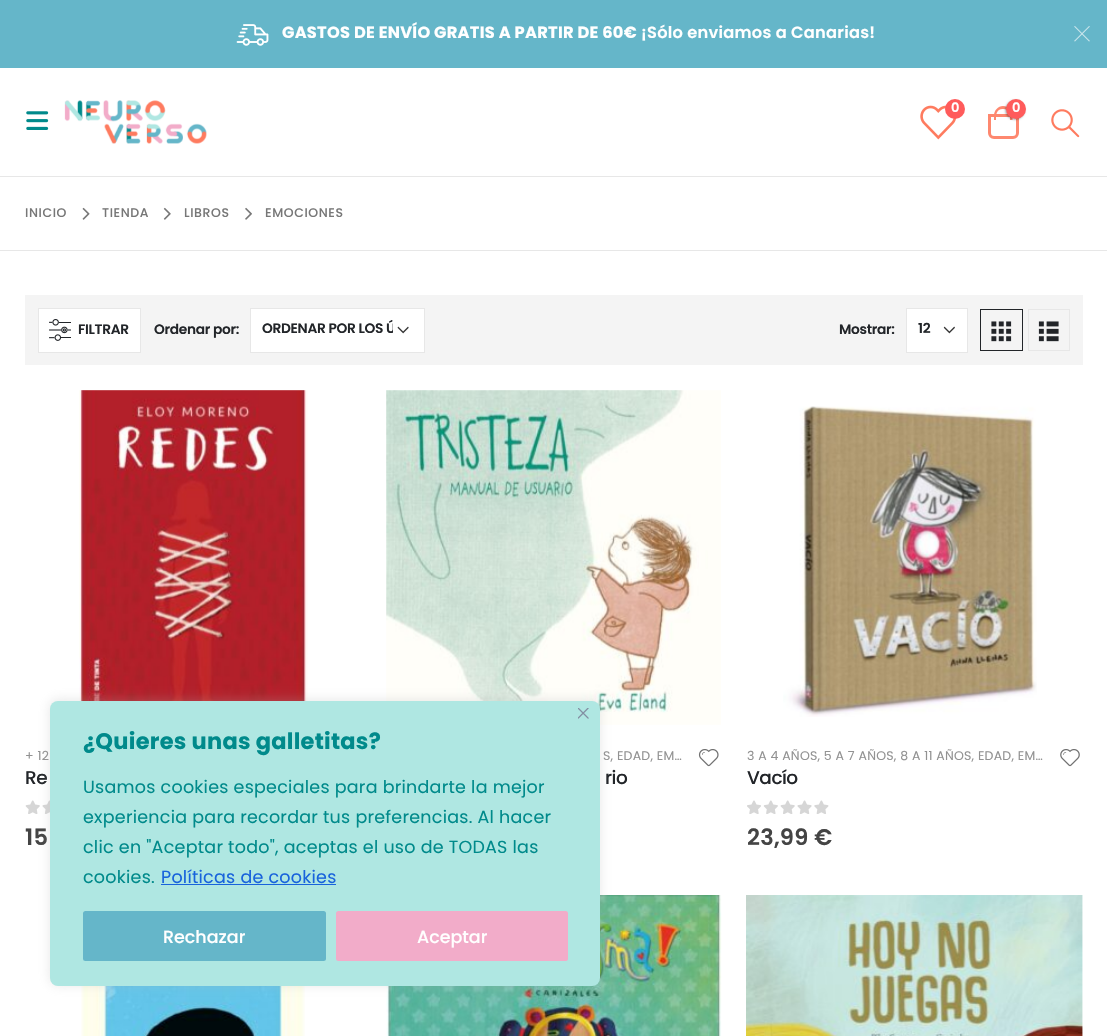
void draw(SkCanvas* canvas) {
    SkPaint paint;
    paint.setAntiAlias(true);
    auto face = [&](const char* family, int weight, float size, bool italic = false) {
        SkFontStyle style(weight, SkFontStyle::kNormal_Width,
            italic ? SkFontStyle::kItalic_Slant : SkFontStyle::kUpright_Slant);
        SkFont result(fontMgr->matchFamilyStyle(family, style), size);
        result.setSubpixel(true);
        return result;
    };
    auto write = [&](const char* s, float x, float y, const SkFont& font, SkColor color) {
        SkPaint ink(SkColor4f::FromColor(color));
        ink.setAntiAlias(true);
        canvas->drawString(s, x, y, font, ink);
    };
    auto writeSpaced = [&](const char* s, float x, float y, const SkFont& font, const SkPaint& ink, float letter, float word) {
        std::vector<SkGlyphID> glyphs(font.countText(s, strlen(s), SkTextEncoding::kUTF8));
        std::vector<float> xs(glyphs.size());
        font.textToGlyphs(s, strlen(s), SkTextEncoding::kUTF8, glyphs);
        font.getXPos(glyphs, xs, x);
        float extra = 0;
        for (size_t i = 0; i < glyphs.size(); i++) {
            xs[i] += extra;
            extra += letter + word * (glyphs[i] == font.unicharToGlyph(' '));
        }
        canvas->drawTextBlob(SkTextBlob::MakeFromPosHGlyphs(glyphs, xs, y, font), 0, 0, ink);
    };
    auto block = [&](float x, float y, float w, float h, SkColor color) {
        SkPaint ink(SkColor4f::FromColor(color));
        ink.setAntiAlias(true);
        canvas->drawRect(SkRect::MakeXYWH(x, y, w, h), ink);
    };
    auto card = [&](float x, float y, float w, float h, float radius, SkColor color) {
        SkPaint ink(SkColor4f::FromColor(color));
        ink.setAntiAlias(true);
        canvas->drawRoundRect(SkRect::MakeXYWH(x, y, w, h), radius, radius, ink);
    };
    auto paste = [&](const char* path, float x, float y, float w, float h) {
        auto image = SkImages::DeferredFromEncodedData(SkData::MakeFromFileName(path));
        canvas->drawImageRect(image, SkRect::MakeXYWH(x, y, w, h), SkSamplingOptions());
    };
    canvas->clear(SK_ColorWHITE);
    block(0, 0, 1107, 68, SkColorSetRGB(101, 182, 201));
    paste("pic1.png", 236, 24, 33, 22);
    auto kFont1 = face("Poppins", 700, 16.25f);
    paint.setColor(SK_ColorWHITE);
    writeSpaced("GASTOS DE ENVÍO GRATIS A PARTIR DE 60€", 282, 38, kFont1, paint, 0.25f, 0);
    auto kFont2 = face("Poppins", 600, 16.25f);
    writeSpaced("¡Sólo enviamos a Canarias!", 641, 38, kFont2, paint, 0.25f, 0);
    paint.setColor(SkColorSetRGB(201, 229, 236));
    canvas->drawPath(SkPathBuilder().moveTo(1075, 26).lineTo(1090, 41).lineTo(1089, 41.5f).lineTo(1074, 26.5f).close().detach(), paint);
    canvas->drawPath(SkPathBuilder().moveTo(1089, 26).lineTo(1090, 26.5f).lineTo(1075, 41.5f).lineTo(1074, 41).close().detach(), paint);
    paste("pic2.png", 26, 111, 23, 19);
    paste("pic3.png", 64, 100, 143, 44);
    paste("pic4.png", 920, 105, 37, 35);
    paint.setColor(SkColorSetRGB(255, 91, 91));
    canvas->drawCircle(955, 109, 10, paint);
    auto kFont3 = face("Poppins", 600, 13);
    paint.setColor(SK_ColorWHITE);
    writeSpaced("0", 951, 112, kFont3, paint, 0.25f, 0);
    paint.setStyle(SkPaint::kStroke_Style);
    paint.setStrokeWidth(3);
    paint.setColor(SkColorSetRGB(254, 136, 111));
    canvas->drawPath(SkPathBuilder().moveTo(989.5f, 115.5f).lineTo(1017.5f, 115.5f).lineTo(1017.5f, 133).cubicTo(1017.5f, 135.5f, 1015.5f, 137.5f, 1013, 137.5f).lineTo(994, 137.5f).cubicTo(991.5f, 137.5f, 989.5f, 135.5f, 989.5f, 133).close().detach(), paint);
    paint.setStyle(SkPaint::kFill_Style);
    canvas->drawPath(SkPathBuilder(SkPathFillType::kEvenOdd).moveTo(1003, 106).cubicTo(1008.5f, 106, 1012.5f, 110.5f, 1012.5f, 115.5f).lineTo(1012.5f, 120).lineTo(994, 120).lineTo(994, 115.5f).cubicTo(994, 110.5f, 998, 106, 1003, 106).close().moveTo(1003, 109).cubicTo(1010, 109, 1010, 115, 1010, 120).lineTo(996, 120).cubicTo(996, 115, 996, 109, 1003, 109).close().detach(), paint);
    paint.setColor(SkColorSetARGB(77, 0, 0, 0));
    paint.setMaskFilter(SkMaskFilter::MakeBlur(kNormal_SkBlurStyle, 1));
    canvas->drawRoundRect(SkRect::MakeXYWH(1005, 100, 20, 20), 10, 10, paint);
    paint.setMaskFilter(nullptr);
    paint.setColor(SkColorSetRGB(255, 91, 91));
    canvas->drawCircle(1016, 109, 10, paint);
    paint.setColor(SK_ColorWHITE);
    writeSpaced("0", 1012, 112, kFont3, paint, 0.25f, 0);
    paste("pic5.png", 1051, 109, 29, 29);
    block(0, 176, 1107, 1, SkColorSetRGB(231, 231, 231));
    block(0, 250, 1107, 1, SkColorSetRGB(231, 231, 231));
    auto kFont4 = face("Poppins", 500, 12.5f);
    paint.setColor(SkColorSetRGB(119, 119, 119));
    writeSpaced("INICIO", 25, 217, kFont4, paint, 0.6f, 0);
    paste("pic6.png", 82, 207, 8, 13);
    writeSpaced("TIENDA", 102, 217, kFont4, paint, 0.6f, 0);
    paste("pic7.png", 163, 207, 8, 13);
    writeSpaced("LIBROS", 184, 217, kFont4, paint, 0.6f, 0);
    paste("pic8.png", 245, 207, 7, 13);
    writeSpaced("EMOCIONES", 265, 217, kFont4, paint, 0.6f, 0);
    block(25, 295, 1058, 70, SkColorSetRGB(244, 244, 244));
    paint.setColor(SK_ColorWHITE);
    canvas->drawRect(SkRect::MakeXYWH(38.5f, 308.5f, 102, 44), paint);
    paint.setStyle(SkPaint::kStroke_Style);
    paint.setStrokeWidth(1);
    paint.setColor(SkColorSetRGB(231, 231, 231));
    canvas->drawRect(SkRect::MakeXYWH(38.5f, 308.5f, 102, 44), paint);
    paste("pic9.png", 49, 319, 22, 22);
    auto kFont5 = face("Poppins", 600, 13.75f);
    paint.setStyle(SkPaint::kFill_Style);
    paint.setColor(SkColorSetRGB(34, 37, 41));
    writeSpaced("FILTRAR", 78, 334, kFont5, paint, -0.3f, 0);
    writeSpaced("Ordenar por:", 154, 334, kFont5, paint, -0.3f, 0);
    block(251, 309, 173, 43, SK_ColorWHITE);
    paste("pic10.png", 397, 326, 12, 8);
    paint.setStyle(SkPaint::kStroke_Style);
    paint.setColor(SkColorSetRGB(231, 231, 231));
    canvas->drawRect(SkRect::MakeXYWH(250.5f, 308.5f, 174, 44), paint);
    canvas->save();
    canvas->clipRect(SkRect::MakeXYWH(261, 320, 132, 19));
    paint.setStyle(SkPaint::kFill_Style);
    paint.setColor(SkColorSetRGB(34, 37, 41));
    writeSpaced("ORDENAR POR LOS Ú", 262, 333, kFont5, paint, -0.3f, 0);
    canvas->restore();
    writeSpaced("Mostrar:", 839, 334, kFont5, paint, -0.3f, 0);
    block(907, 309, 60, 43, SK_ColorWHITE);
    paste("pic11.png", 943, 326, 12, 8);
    paint.setStyle(SkPaint::kStroke_Style);
    paint.setColor(SkColorSetRGB(231, 231, 231));
    canvas->drawRect(SkRect::MakeXYWH(906.5f, 308.5f, 61, 44), paint);
    paint.setStyle(SkPaint::kFill_Style);
    paint.setColor(SkColorSetRGB(34, 37, 41));
    writeSpaced("12", 918, 333, kFont5, paint, -0.3f, 0);
    paint.setStyle(SkPaint::kStroke_Style);
    canvas->drawRect(SkRect::MakeXYWH(980.5f, 309.5f, 42, 41), paint);
    paste("pic12.png", 991, 321, 21, 21);
    paint.setColor(SkColorSetRGB(231, 231, 231));
    canvas->drawRect(SkRect::MakeXYWH(1028.5f, 309.5f, 41, 41), paint);
    paste("pic13.png", 1038, 321, 21, 21);
    paste("pic14.png", 79, 390, 229, 311);
    auto kFont6 = face("Poppins", 400, 12.5f);
    paint.setStyle(SkPaint::kFill_Style);
    paint.setColor(SkColorSetRGB(146, 146, 146));
    writeSpaced("+ 12", 25, 760, kFont6, paint, 0.25f, 0);
    auto kFont7 = face("Poppins", 500, 18.5f);
    paint.setColor(SkColorSetRGB(34, 37, 41));
    writeSpaced("Re", 25, 784, kFont7, paint, -0.5f, 0);
    paste("pic15.png", 25, 800, 25, 14);
    auto kFont8 = face("Poppins", 600, 22.5f);
    paint.setColor(SkColorSetRGB(68, 68, 68));
    writeSpaced("15", 25, 845, kFont8, paint, 0.25f, 0);
    paste("pic16.png", 386, 390, 335, 335);
    paint.setColor(SkColorSetRGB(146, 146, 146));
    writeSpaced("S, EDAD, EM…", 603, 760, kFont6, paint, 0.25f, 0);
    paste("pic17.png", 698, 749, 21, 18);
    paint.setColor(SkColorSetRGB(34, 37, 41));
    writeSpaced("rio", 605, 784, kFont7, paint, -0.5f, 0);
    paste("pic18.png", 783, 406, 254, 311);
    paint.setColor(SkColorSetRGB(146, 146, 146));
    writeSpaced("3 A 4 AÑOS, 5 A 7 AÑOS, 8 A 11 AÑOS, EDAD, EM…", 747, 760, kFont6, paint, 0.25f, 0);
    paste("pic19.png", 1060, 749, 20, 18);
    paint.setColor(SkColorSetRGB(34, 37, 41));
    writeSpaced("Vacío", 747, 784, kFont7, paint, -0.5f, 0);
    paste("pic20.png", 747, 800, 82, 14);
    paint.setColor(SkColorSetRGB(68, 68, 68));
    writeSpaced("23,99 €", 747, 845, kFont8, paint, 0.25f, 0);
    paste("pic21.png", 81, 986, 224, 50);
    paste("pic22.png", 386, 895, 336, 141);
    paste("pic23.png", 746, 895, 337, 141);
    paint.setColor(SkColorSetARGB(77, 172, 171, 171));
    paint.setMaskFilter(SkMaskFilter::MakeBlur(kNormal_SkBlurStyle, 6));
    canvas->drawRoundRect(SkRect::MakeXYWH(50, 700, 550, 285), 8, 8, paint);
    paint.setMaskFilter(nullptr);
    card(50, 701, 550, 285, 8, SkColorSetRGB(175, 231, 226));
    paste("pic24.png", 578, 708, 11, 11);
    auto kFont9 = face("Poppins", 700, 22.5f);
    paint.setColor(SkColorSetRGB(0, 138, 139));
    writeSpaced("¿Quieres unas galletitas?", 83, 749, kFont9, paint, 0.25f, 0);
    auto kFont10 = face("Poppins", 400, 17.5f);
    writeSpaced("Usamos cookies especiales para brindarte la mejor", 83, 793, kFont10, paint, 0.25f, 0);
    writeSpaced("experiencia para recordar tus preferencias. Al hacer", 83, 823, kFont10, paint, 0.25f, 0);
    writeSpaced("clic en \"Aceptar todo\", aceptas el uso de TODAS las", 83, 853, kFont10, paint, 0.25f, 0);
    writeSpaced("cookies.", 83, 883, kFont10, paint, 0.25f, 0);
    paint.setColor(SkColorSetRGB(24, 99, 220));
    writeSpaced("Políticas de cookies", 161, 883, kFont10, paint, 0.25f, 0);
    block(161, 884, 175, 1, SkColorSetRGB(24, 99, 220));
    card(83, 911, 243, 50, 2.5f, SkColorSetRGB(101, 182, 201));
    auto kFont11 = face("Poppins", 500, 17.5f);
    write("Rechazar", 163, 943, kFont11, SK_ColorWHITE);
    card(336, 911, 232, 50, 2.5f, SkColorSetRGB(242, 172, 201));
    write("Aceptar", 417, 943, kFont11, SK_ColorWHITE);
}
